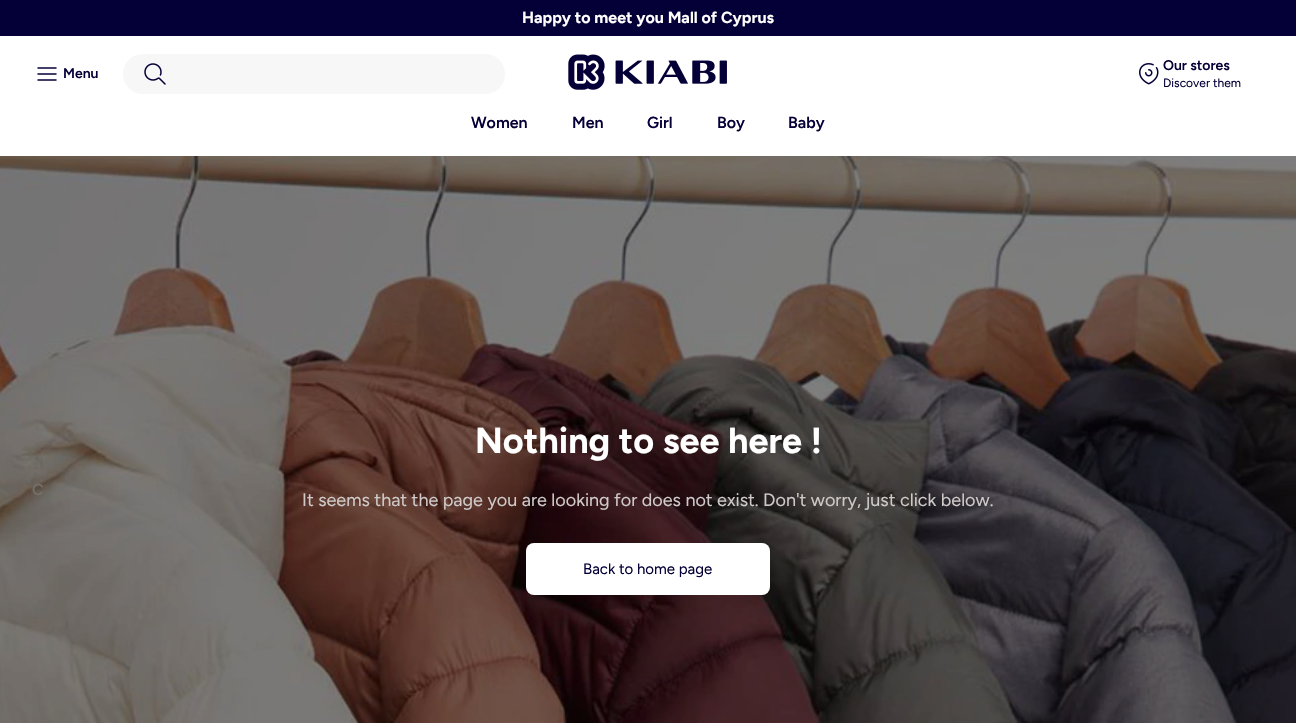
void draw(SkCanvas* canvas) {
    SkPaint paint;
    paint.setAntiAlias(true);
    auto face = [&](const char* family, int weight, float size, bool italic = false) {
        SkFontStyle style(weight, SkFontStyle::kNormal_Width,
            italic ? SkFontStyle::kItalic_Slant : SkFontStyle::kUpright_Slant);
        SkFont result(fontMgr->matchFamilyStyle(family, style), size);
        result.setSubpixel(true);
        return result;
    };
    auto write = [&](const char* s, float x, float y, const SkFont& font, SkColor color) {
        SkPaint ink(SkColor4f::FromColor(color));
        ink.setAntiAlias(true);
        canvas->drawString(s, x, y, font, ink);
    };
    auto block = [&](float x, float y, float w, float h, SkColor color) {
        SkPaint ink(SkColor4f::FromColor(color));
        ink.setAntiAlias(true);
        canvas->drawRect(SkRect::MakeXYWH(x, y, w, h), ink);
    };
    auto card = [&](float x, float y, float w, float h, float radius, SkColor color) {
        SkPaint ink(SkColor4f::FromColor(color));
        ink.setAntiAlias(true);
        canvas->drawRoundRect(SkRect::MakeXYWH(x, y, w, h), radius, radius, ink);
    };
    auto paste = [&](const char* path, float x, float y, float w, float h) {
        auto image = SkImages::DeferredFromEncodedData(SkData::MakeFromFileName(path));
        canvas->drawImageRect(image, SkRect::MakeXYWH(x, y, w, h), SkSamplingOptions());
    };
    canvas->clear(SK_ColorWHITE);
    block(0, 0, 1296, 36, SkColorSetRGB(4, 0, 55));
    auto kFont1 = face("Figtree", 700, 16);
    write("Happy to meet you Mall of Cyprus", 522, 23, kFont1, SK_ColorWHITE);
    paint.setStyle(SkPaint::kStroke_Style);
    paint.setStrokeWidth(1.5f);
    paint.setStrokeCap(SkPaint::kRound_Cap);
    paint.setColor(SkColorSetRGB(4, 0, 55));
    canvas->drawPath(SkPathBuilder().moveTo(38, 68).lineTo(56, 68).moveTo(38, 74).lineTo(56, 74).moveTo(38, 80).lineTo(56, 80).detach(), paint);
    auto kFont2 = face("Figtree", 600, 14);
    write("Menu", 63, 78, kFont2, SkColorSetRGB(4, 0, 55));
    card(123, 54, 382, 40, 20, SkColorSetRGB(247, 247, 247));
    paste("pic1.png", 144, 63, 22, 22);
    paste("pic2.png", 568, 54, 159, 36);
    paste("pic3.png", 1139, 63, 20, 22);
    write("Our stores", 1163, 70, kFont2, SkColorSetRGB(4, 0, 55));
    auto kFont3 = face("Figtree", 400, 12);
    write("Discover them", 1163, 87, kFont3, SkColorSetRGB(4, 0, 55));
    auto kFont4 = face("Figtree", 600, 16);
    write("Women", 471, 128, kFont4, SkColorSetRGB(4, 0, 55));
    write("Men", 572, 128, kFont4, SkColorSetRGB(4, 0, 55));
    write("Girl", 647, 128, kFont4, SkColorSetRGB(4, 0, 55));
    write("Boy", 717, 128, kFont4, SkColorSetRGB(4, 0, 55));
    write("Baby", 788, 128, kFont4, SkColorSetRGB(4, 0, 55));
    paste("pic4.png", 0, 156, 1296, 567);
    write("C", 32, 495, kFont4, SkColorSetRGB(115, 110, 106));
    auto kFont5 = face("Figtree", 700, 36);
    write("Nothing to see here !", 475, 453, kFont5, SK_ColorWHITE);
    auto kFont6 = face("Figtree", 400, 18);
    write("It seems that the page you are looking for does not exist. Don't worry, just click below.", 302, 506, kFont6, SkColorSetRGB(207, 202, 201));
    card(526, 543, 244, 52, 8, SK_ColorWHITE);
    auto kFont7 = face("Figtree", 400, 15);
    write("Back to home page", 583, 574, kFont7, SkColorSetRGB(4, 0, 55));
}
